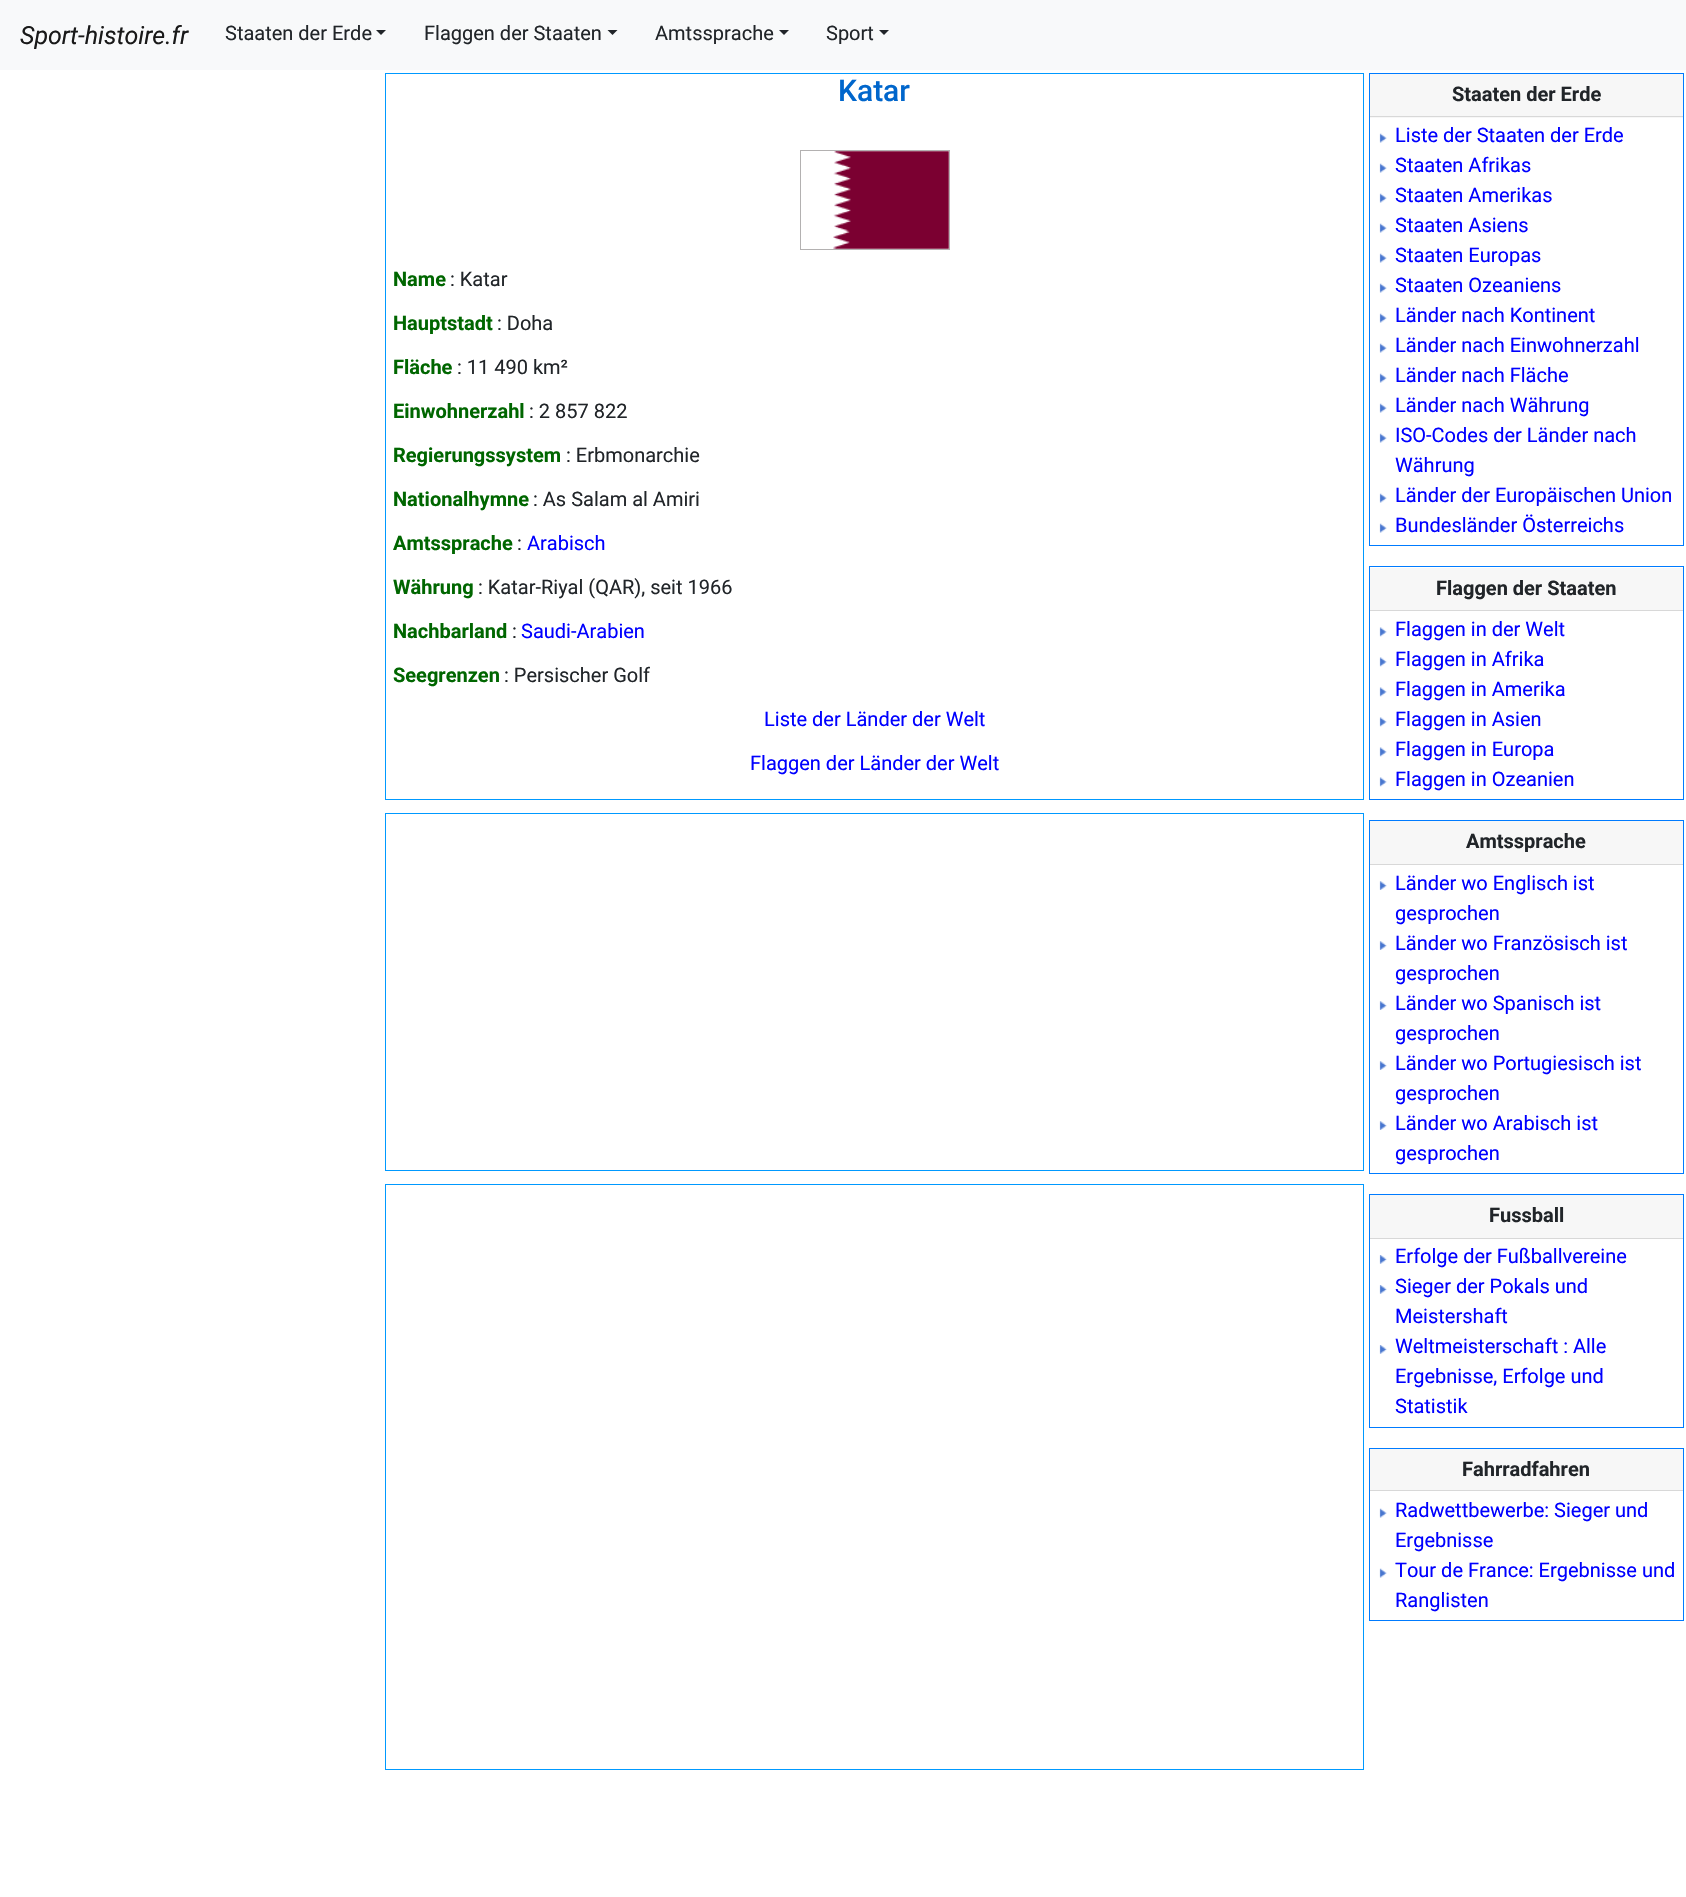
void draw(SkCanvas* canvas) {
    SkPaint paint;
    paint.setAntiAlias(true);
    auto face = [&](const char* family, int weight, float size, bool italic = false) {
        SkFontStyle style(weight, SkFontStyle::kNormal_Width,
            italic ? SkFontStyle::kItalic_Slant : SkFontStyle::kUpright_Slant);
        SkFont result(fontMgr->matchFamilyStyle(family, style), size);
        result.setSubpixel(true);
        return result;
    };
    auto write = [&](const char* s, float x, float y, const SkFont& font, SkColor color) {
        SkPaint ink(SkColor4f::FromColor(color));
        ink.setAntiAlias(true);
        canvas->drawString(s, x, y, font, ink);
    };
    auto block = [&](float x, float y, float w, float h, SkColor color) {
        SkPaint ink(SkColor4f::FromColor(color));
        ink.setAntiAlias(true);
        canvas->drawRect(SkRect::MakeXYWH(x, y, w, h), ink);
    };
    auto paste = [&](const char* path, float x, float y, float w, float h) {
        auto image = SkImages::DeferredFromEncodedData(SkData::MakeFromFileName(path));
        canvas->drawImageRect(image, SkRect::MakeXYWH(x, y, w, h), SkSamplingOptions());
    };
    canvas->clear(SK_ColorWHITE);
    block(0, 0, 1686, 70, SkColorSetRGB(248, 249, 250));
    auto kFont1 = face("Roboto", 400, 25, true);
    write("Sport-histoire.fr", 20, 44, kFont1, SkColorSetRGB(25, 25, 25));
    auto kFont2 = face("Roboto", 400, 20);
    write("Staaten der Erde", 225, 40, kFont2, SkColorSetRGB(33, 37, 41));
    paint.setColor(SkColorSetRGB(33, 37, 41));
    canvas->drawPath(SkPathBuilder().moveTo(376, 30).lineTo(386, 30).lineTo(381, 35).close().detach(), paint);
    write("Flaggen der Staaten", 424, 40, kFont2, SkColorSetRGB(33, 37, 41));
    canvas->drawPath(SkPathBuilder().moveTo(607.5f, 30).lineTo(617.5f, 30).lineTo(612.5f, 35).close().detach(), paint);
    write("Amtssprache", 655, 40, kFont2, SkColorSetRGB(33, 37, 41));
    canvas->drawPath(SkPathBuilder().moveTo(779, 30).lineTo(789, 30).lineTo(784, 35).close().detach(), paint);
    write("Sport", 826, 40, kFont2, SkColorSetRGB(33, 37, 41));
    canvas->drawPath(SkPathBuilder().moveTo(879, 30).lineTo(889, 30).lineTo(884, 35).close().detach(), paint);
    paint.setStyle(SkPaint::kStroke_Style);
    paint.setStrokeWidth(1);
    paint.setColor(SkColorSetRGB(0, 153, 255));
    canvas->drawRect(SkRect::MakeXYWH(385.5f, 73.5f, 978, 726), paint);
    auto kFont3 = face("Roboto", 500, 30);
    write("Katar", 838, 101, kFont3, SkColorSetRGB(0, 102, 204));
    paint.setColor(SkColorSetRGB(179, 177, 177));
    canvas->drawRect(SkRect::MakeXYWH(800.5f, 150.5f, 149, 99), paint);
    paste("pic1.png", 833, 151, 116, 98);
    auto kFont4 = face("Roboto", 700, 20);
    write("Name", 393, 286, kFont4, SkColorSetRGB(0, 102, 0));
    write(": Katar", 450, 286, kFont2, SkColorSetRGB(33, 37, 41));
    write("Hauptstadt", 393, 330, kFont4, SkColorSetRGB(0, 102, 0));
    write(": Doha", 497, 330, kFont2, SkColorSetRGB(33, 37, 41));
    write("Fläche", 393, 374, kFont4, SkColorSetRGB(0, 102, 0));
    write(": 11 490 km²", 457, 374, kFont2, SkColorSetRGB(33, 37, 41));
    write("Einwohnerzahl", 393, 418, kFont4, SkColorSetRGB(0, 102, 0));
    write(": 2 857 822", 529, 418, kFont2, SkColorSetRGB(33, 37, 41));
    write("Regierungssystem", 393, 462, kFont4, SkColorSetRGB(0, 102, 0));
    write(": Erbmonarchie", 566, 462, kFont2, SkColorSetRGB(33, 37, 41));
    write("Nationalhymne", 393, 506, kFont4, SkColorSetRGB(0, 102, 0));
    write(": As Salam al Amiri", 533, 506, kFont2, SkColorSetRGB(33, 37, 41));
    write("Amtssprache", 393, 550, kFont4, SkColorSetRGB(0, 102, 0));
    write(":", 517, 550, kFont2, SkColorSetRGB(33, 37, 41));
    write("Arabisch", 527, 550, kFont2, SkColorSetRGB(0, 0, 255));
    write("Währung", 393, 594, kFont4, SkColorSetRGB(0, 102, 0));
    write(": Katar-Riyal (QAR), seit 1966", 478, 594, kFont2, SkColorSetRGB(33, 37, 41));
    write("Nachbarland", 393, 638, kFont4, SkColorSetRGB(0, 102, 0));
    write(":", 512, 638, kFont2, SkColorSetRGB(33, 37, 41));
    write("Saudi-Arabien", 521, 638, kFont2, SkColorSetRGB(0, 0, 255));
    write("Seegrenzen", 393, 682, kFont4, SkColorSetRGB(0, 102, 0));
    write(": Persischer Golf", 504, 682, kFont2, SkColorSetRGB(33, 37, 41));
    write("Liste der Länder der Welt", 764, 726, kFont2, SkColorSetRGB(0, 0, 255));
    write("Flaggen der Länder der Welt", 750, 770, kFont2, SkColorSetRGB(0, 0, 255));
    paint.setColor(SkColorSetRGB(0, 153, 255));
    canvas->drawRect(SkRect::MakeXYWH(385.5f, 813.5f, 978, 357), paint);
    canvas->drawRect(SkRect::MakeXYWH(385.5f, 1184.5f, 978, 585), paint);
    paint.setColor(SkColorSetRGB(0, 123, 255));
    canvas->drawRect(SkRect::MakeXYWH(1369.5f, 73.5f, 314, 472), paint);
    block(1370, 74, 313, 44, SkColorSetRGB(247, 247, 247));
    block(1370, 116, 313, 1, SkColorSetRGB(216, 216, 216));
    write("Staaten der Erde", 1452, 101, kFont4, SkColorSetRGB(33, 37, 41));
    paste("pic2.png", 1379, 133, 8, 10);
    write("Liste der Staaten der Erde", 1395, 142, kFont2, SkColorSetRGB(0, 0, 255));
    paste("pic2.png", 1379, 163, 8, 10);
    write("Staaten Afrikas", 1395, 172, kFont2, SkColorSetRGB(0, 0, 255));
    paste("pic2.png", 1379, 193, 8, 10);
    write("Staaten Amerikas", 1395, 202, kFont2, SkColorSetRGB(0, 0, 255));
    paste("pic2.png", 1379, 223, 8, 10);
    write("Staaten Asiens", 1395, 232, kFont2, SkColorSetRGB(0, 0, 255));
    paste("pic2.png", 1379, 253, 8, 10);
    write("Staaten Europas", 1395, 262, kFont2, SkColorSetRGB(0, 0, 255));
    paste("pic2.png", 1379, 283, 8, 10);
    write("Staaten Ozeaniens", 1395, 292, kFont2, SkColorSetRGB(0, 0, 255));
    paste("pic2.png", 1379, 313, 8, 10);
    write("Länder nach Kontinent", 1395, 322, kFont2, SkColorSetRGB(0, 0, 255));
    paste("pic2.png", 1379, 343, 8, 10);
    write("Länder nach Einwohnerzahl", 1395, 352, kFont2, SkColorSetRGB(0, 0, 255));
    paste("pic2.png", 1379, 373, 8, 10);
    write("Länder nach Fläche", 1395, 382, kFont2, SkColorSetRGB(0, 0, 255));
    paste("pic2.png", 1379, 403, 8, 10);
    write("Länder nach Währung", 1395, 412, kFont2, SkColorSetRGB(0, 0, 255));
    paste("pic2.png", 1379, 433, 8, 10);
    write("ISO-Codes der Länder nach", 1395, 442, kFont2, SkColorSetRGB(0, 0, 255));
    write("Währung", 1395, 472, kFont2, SkColorSetRGB(0, 0, 255));
    paste("pic2.png", 1379, 493, 8, 10);
    write("Länder der Europäischen Union", 1395, 502, kFont2, SkColorSetRGB(0, 0, 255));
    paste("pic2.png", 1379, 523, 8, 10);
    write("Bundesländer Österreichs", 1395, 532, kFont2, SkColorSetRGB(0, 0, 255));
    canvas->drawRect(SkRect::MakeXYWH(1369.5f, 566.5f, 314, 233), paint);
    block(1370, 568, 313, 42, SkColorSetRGB(247, 247, 247));
    block(1370, 610, 313, 1, SkColorSetRGB(216, 216, 216));
    write("Flaggen der Staaten", 1436, 595, kFont4, SkColorSetRGB(33, 37, 41));
    paste("pic3.png", 1379, 627, 8, 10);
    write("Flaggen in der Welt", 1395, 636, kFont2, SkColorSetRGB(0, 0, 255));
    paste("pic3.png", 1379, 657, 8, 10);
    write("Flaggen in Afrika", 1395, 666, kFont2, SkColorSetRGB(0, 0, 255));
    paste("pic3.png", 1379, 687, 8, 10);
    write("Flaggen in Amerika", 1395, 696, kFont2, SkColorSetRGB(0, 0, 255));
    paste("pic3.png", 1379, 717, 8, 10);
    write("Flaggen in Asien", 1395, 726, kFont2, SkColorSetRGB(0, 0, 255));
    paste("pic3.png", 1379, 747, 8, 10);
    write("Flaggen in Europa", 1395, 756, kFont2, SkColorSetRGB(0, 0, 255));
    paste("pic3.png", 1379, 777, 8, 10);
    write("Flaggen in Ozeanien", 1395, 786, kFont2, SkColorSetRGB(0, 0, 255));
    canvas->drawRect(SkRect::MakeXYWH(1369.5f, 820.5f, 314, 353), paint);
    block(1370, 821, 313, 43, SkColorSetRGB(247, 247, 247));
    block(1370, 864, 313, 1, SkColorSetRGB(216, 216, 216));
    write("Amtssprache", 1466, 848, kFont4, SkColorSetRGB(33, 37, 41));
    paste("pic4.png", 1379, 881, 8, 9);
    write("Länder wo Englisch ist", 1395, 890, kFont2, SkColorSetRGB(0, 0, 255));
    write("gesprochen", 1395, 920, kFont2, SkColorSetRGB(0, 0, 255));
    paste("pic4.png", 1379, 941, 8, 9);
    write("Länder wo Französisch ist", 1395, 950, kFont2, SkColorSetRGB(0, 0, 255));
    write("gesprochen", 1395, 980, kFont2, SkColorSetRGB(0, 0, 255));
    paste("pic4.png", 1379, 1001, 8, 9);
    write("Länder wo Spanisch ist", 1395, 1010, kFont2, SkColorSetRGB(0, 0, 255));
    write("gesprochen", 1395, 1040, kFont2, SkColorSetRGB(0, 0, 255));
    paste("pic4.png", 1379, 1061, 8, 9);
    write("Länder wo Portugiesisch ist", 1395, 1070, kFont2, SkColorSetRGB(0, 0, 255));
    write("gesprochen", 1395, 1100, kFont2, SkColorSetRGB(0, 0, 255));
    paste("pic4.png", 1379, 1121, 8, 9);
    write("Länder wo Arabisch ist", 1395, 1130, kFont2, SkColorSetRGB(0, 0, 255));
    write("gesprochen", 1395, 1160, kFont2, SkColorSetRGB(0, 0, 255));
    canvas->drawRect(SkRect::MakeXYWH(1369.5f, 1194.5f, 314, 233), paint);
    block(1370, 1195, 313, 43, SkColorSetRGB(247, 247, 247));
    block(1370, 1238, 313, 1, SkColorSetRGB(216, 216, 216));
    write("Fussball", 1489, 1222, kFont4, SkColorSetRGB(33, 37, 41));
    paste("pic5.png", 1379, 1255, 8, 9);
    write("Erfolge der Fußballvereine", 1395, 1263, kFont2, SkColorSetRGB(0, 0, 255));
    paste("pic5.png", 1379, 1285, 8, 9);
    write("Sieger der Pokals und", 1395, 1293, kFont2, SkColorSetRGB(0, 0, 255));
    write("Meistershaft", 1395, 1323, kFont2, SkColorSetRGB(0, 0, 255));
    paste("pic5.png", 1379, 1345, 8, 9);
    write("Weltmeisterschaft : Alle", 1395, 1353, kFont2, SkColorSetRGB(0, 0, 255));
    write("Ergebnisse, Erfolge und", 1395, 1383, kFont2, SkColorSetRGB(0, 0, 255));
    write("Statistik", 1395, 1413, kFont2, SkColorSetRGB(0, 0, 255));
    canvas->drawRect(SkRect::MakeXYWH(1369.5f, 1448.5f, 314, 172), paint);
    block(1370, 1449, 313, 41, SkColorSetRGB(247, 247, 247));
    block(1370, 1490, 313, 1, SkColorSetRGB(216, 216, 216));
    write("Fahrradfahren", 1462, 1476, kFont4, SkColorSetRGB(33, 37, 41));
    paste("pic2.png", 1379, 1508, 8, 10);
    write("Radwettbewerbe: Sieger und", 1395, 1517, kFont2, SkColorSetRGB(0, 0, 255));
    write("Ergebnisse", 1395, 1547, kFont2, SkColorSetRGB(0, 0, 255));
    paste("pic2.png", 1379, 1568, 8, 10);
    write("Tour de France: Ergebnisse und", 1395, 1577, kFont2, SkColorSetRGB(0, 0, 255));
    write("Ranglisten", 1395, 1607, kFont2, SkColorSetRGB(0, 0, 255));
}
